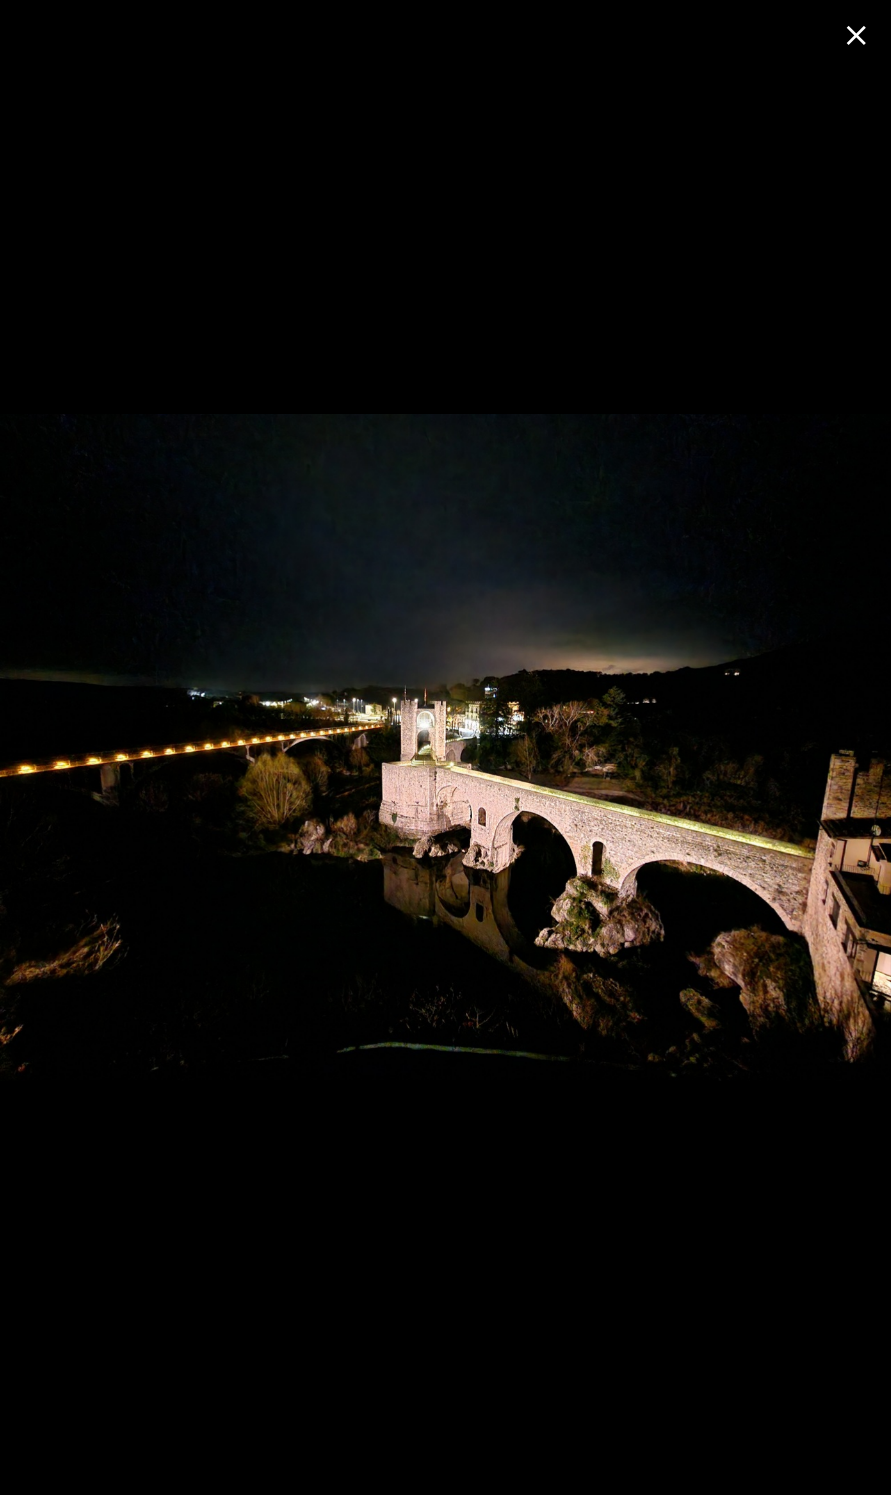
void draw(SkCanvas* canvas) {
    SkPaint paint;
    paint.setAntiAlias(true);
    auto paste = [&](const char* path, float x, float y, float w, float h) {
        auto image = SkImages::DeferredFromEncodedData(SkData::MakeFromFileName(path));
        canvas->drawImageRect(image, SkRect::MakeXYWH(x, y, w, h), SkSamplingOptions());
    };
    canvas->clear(SK_ColorBLACK);
    paste("pic1.png", 846, 25, 20, 20);
    paste("pic2.png", 0, 414, 891, 667);
}
